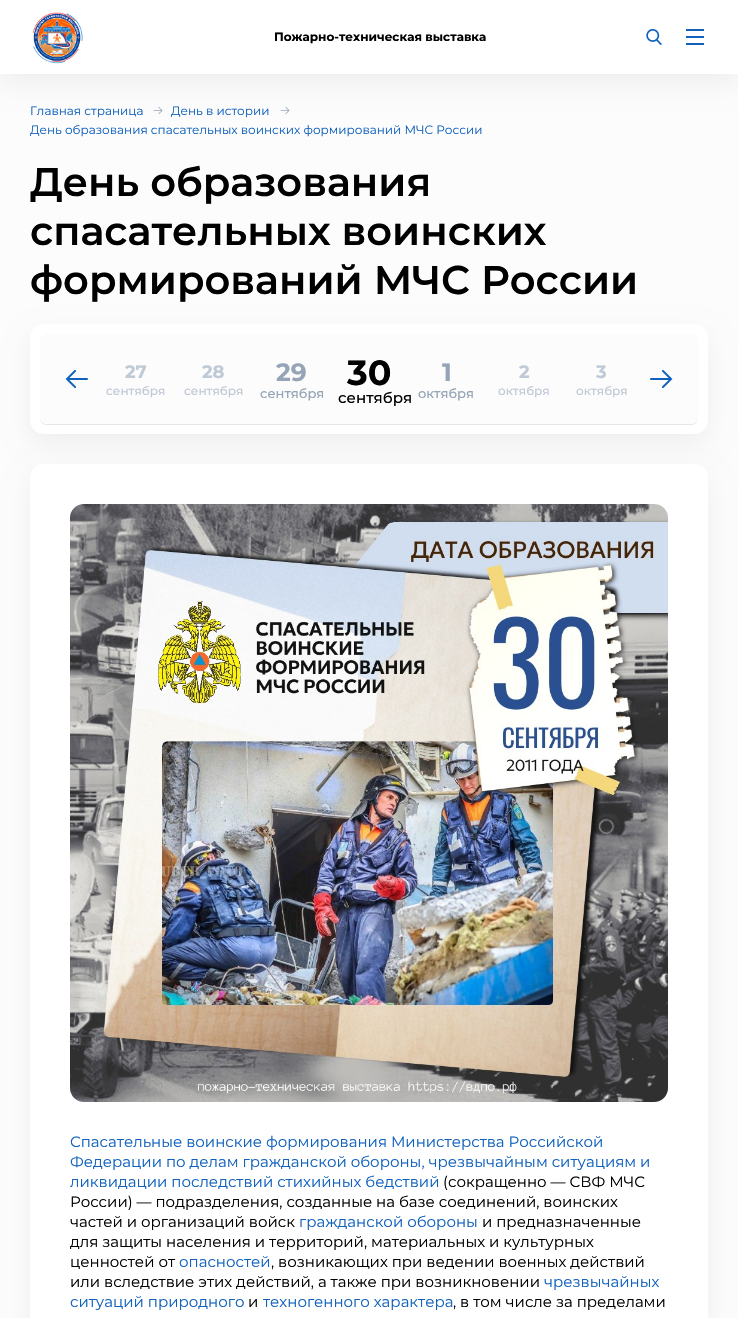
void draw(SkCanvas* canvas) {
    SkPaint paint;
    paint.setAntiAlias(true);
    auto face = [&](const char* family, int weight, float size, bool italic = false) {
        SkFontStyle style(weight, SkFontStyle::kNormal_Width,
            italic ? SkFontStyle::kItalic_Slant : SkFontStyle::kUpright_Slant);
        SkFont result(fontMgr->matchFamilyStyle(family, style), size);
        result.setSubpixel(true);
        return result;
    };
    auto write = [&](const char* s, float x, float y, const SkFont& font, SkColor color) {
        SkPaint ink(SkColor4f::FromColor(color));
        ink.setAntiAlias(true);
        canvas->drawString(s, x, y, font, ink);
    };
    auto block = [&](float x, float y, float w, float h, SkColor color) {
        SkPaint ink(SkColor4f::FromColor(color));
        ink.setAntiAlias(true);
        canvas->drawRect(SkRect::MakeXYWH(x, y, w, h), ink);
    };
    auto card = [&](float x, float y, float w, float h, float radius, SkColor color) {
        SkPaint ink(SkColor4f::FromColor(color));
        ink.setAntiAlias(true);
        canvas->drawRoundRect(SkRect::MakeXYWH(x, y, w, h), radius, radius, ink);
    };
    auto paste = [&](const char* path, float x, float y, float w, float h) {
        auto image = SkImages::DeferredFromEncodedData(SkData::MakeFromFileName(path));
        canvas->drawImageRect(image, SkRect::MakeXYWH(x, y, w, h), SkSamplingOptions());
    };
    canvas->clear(SkColorSetRGB(252, 252, 252));
    paste("pic3.png", 153, 107, 10, 7);
    paste("pic3.png", 280, 107, 10, 7);
    paint.setColor(SkColorSetARGB(13, 0, 0, 0));
    paint.setMaskFilter(SkMaskFilter::MakeBlur(kNormal_SkBlurStyle, 12.5f));
    canvas->drawRect(SkRect::MakeXYWH(0, 10, 738, 74), paint);
    paint.setMaskFilter(nullptr);
    block(0, 0, 738, 74, SK_ColorWHITE);
    paste("pic1.png", 32, 12, 51, 52);
    auto kFont1 = face("Montserrat", 700, 12);
    write("Пожарно-техническая выставка", 274, 41, kFont1, SK_ColorBLACK);
    paste("pic2.png", 646, 29, 16, 16);
    block(686, 29, 18, 2, SkColorSetRGB(16, 97, 189));
    block(686, 36, 18, 2, SkColorSetRGB(16, 97, 189));
    block(686, 43, 18, 2, SkColorSetRGB(16, 97, 189));
    auto kFont2 = face("Montserrat", 400, 12);
    write("Главная страница", 30, 115, kFont2, SkColorSetRGB(16, 97, 189));
    write("День в истории", 171, 115, kFont2, SkColorSetRGB(16, 97, 189));
    write("День образования спасательных воинских формирований МЧС России", 30, 134, kFont2, SkColorSetRGB(16, 97, 189));
    auto kFont3 = face("Montserrat", 600, 40);
    write("День образования", 30, 196, kFont3, SK_ColorBLACK);
    write("спасательных воинских", 30, 245, kFont3, SK_ColorBLACK);
    paint.setMaskFilter(SkMaskFilter::MakeBlur(kNormal_SkBlurStyle, 12.5f));
    canvas->drawRoundRect(SkRect::MakeXYWH(30, 334, 678, 110), 14, 14, paint);
    paint.setMaskFilter(nullptr);
    write("формирований МЧС России", 30, 294, kFont3, SK_ColorBLACK);
    card(30, 324, 678, 110, 14, SK_ColorWHITE);
    paint.setColor(SkColorSetRGB(229, 229, 229));
    canvas->drawPath(SkPathBuilder().moveTo(40, 417).lineTo(40, 418).cubicTo(40, 422, 43, 425, 47, 425).lineTo(691, 425).cubicTo(695, 425, 698, 422, 698, 418).lineTo(698, 417).cubicTo(698, 421, 695, 424, 691, 424).lineTo(47, 424).cubicTo(43, 424, 40, 421, 40, 417).close().detach(), paint);
    card(40, 334, 658, 90, 7, SkColorSetRGB(252, 252, 252));
    paste("pic4.png", 65, 370, 23, 18);
    auto kFont4 = face("Montserrat", 700, 18);
    write("27", 125, 378, kFont4, SkColorSetRGB(192, 202, 215));
    auto kFont5 = face("Montserrat", 500, 12);
    write("сентября", 106, 395, kFont5, SkColorSetRGB(192, 202, 215));
    write("28", 202, 378, kFont4, SkColorSetRGB(192, 202, 215));
    write("сентября", 184, 395, kFont5, SkColorSetRGB(192, 202, 215));
    auto kFont6 = face("Montserrat", 700, 25);
    write("29", 276, 381, kFont6, SkColorSetRGB(149, 165, 183));
    auto kFont7 = face("Montserrat", 500, 13);
    write("сентября", 260, 398, kFont7, SkColorSetRGB(149, 165, 183));
    auto kFont8 = face("Montserrat", 700, 35);
    write("30", 347, 385, kFont8, SK_ColorBLACK);
    auto kFont9 = face("Montserrat", 500, 15);
    write("сентября", 338, 403, kFont9, SK_ColorBLACK);
    write("1", 442, 381, kFont6, SkColorSetRGB(149, 165, 183));
    write("октября", 418, 398, kFont7, SkColorSetRGB(149, 165, 183));
    write("2", 519, 378, kFont4, SkColorSetRGB(192, 202, 215));
    write("октября", 498, 395, kFont5, SkColorSetRGB(192, 202, 215));
    write("3", 596, 378, kFont4, SkColorSetRGB(192, 202, 215));
    write("октября", 576, 395, kFont5, SkColorSetRGB(192, 202, 215));
    paste("pic5.png", 650, 370, 23, 18);
    paint.setColor(SkColorSetARGB(13, 0, 0, 0));
    paint.setMaskFilter(SkMaskFilter::MakeBlur(kNormal_SkBlurStyle, 12.5f));
    canvas->drawRoundRect(SkRect::MakeXYWH(30, 474, 678, 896), 14, 14, paint);
    paint.setMaskFilter(nullptr);
    card(30, 464, 678, 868, 14, SK_ColorWHITE);
    paste("pic6.png", 70, 504, 598, 598);
    auto kFont10 = face("Montserrat", 400, 15);
    write("Спасательные воинские формирования Министерства Российской", 70, 1147, kFont10, SkColorSetRGB(16, 97, 189));
    write("Федерации по делам гражданской обороны, чрезвычайным ситуациям и", 70, 1167, kFont10, SkColorSetRGB(16, 97, 189));
    write("ликвидации последствий стихийных бедствий", 70, 1187, kFont10, SkColorSetRGB(16, 97, 189));
    write("(сокращенно — СВФ МЧС", 443, 1187, kFont10, SK_ColorBLACK);
    write("России) — подразделения, созданные на базе соединений, воинских", 70, 1207, kFont10, SK_ColorBLACK);
    write("частей и организаций войск", 70, 1227, kFont10, SK_ColorBLACK);
    write("гражданской обороны", 299, 1227, kFont10, SkColorSetRGB(16, 97, 189));
    write("и предназначенные", 482, 1227, kFont10, SK_ColorBLACK);
    write("для защиты населения и территорий, материальных и культурных", 70, 1247, kFont10, SK_ColorBLACK);
    write("ценностей от", 70, 1267, kFont10, SK_ColorBLACK);
    write("опасностей", 179, 1267, kFont10, SkColorSetRGB(16, 97, 189));
    write(", возникающих при ведении военных действий", 271, 1267, kFont10, SK_ColorBLACK);
    write("или вследствие этих действий, а также при возникновении", 70, 1287, kFont10, SK_ColorBLACK);
    write("чрезвычайных", 544, 1287, kFont10, SkColorSetRGB(16, 97, 189));
    write("ситуаций природного", 70, 1307, kFont10, SkColorSetRGB(16, 97, 189));
    write("и", 248, 1307, kFont10, SK_ColorBLACK);
    write("техногенного характера", 263, 1307, kFont10, SkColorSetRGB(16, 97, 189));
    write(", в том числе за пределами", 453, 1307, kFont10, SK_ColorBLACK);
}
